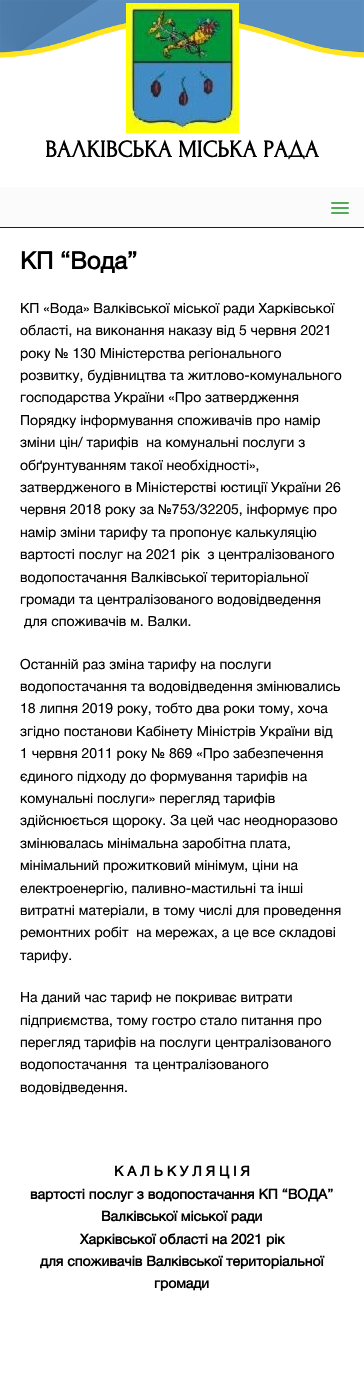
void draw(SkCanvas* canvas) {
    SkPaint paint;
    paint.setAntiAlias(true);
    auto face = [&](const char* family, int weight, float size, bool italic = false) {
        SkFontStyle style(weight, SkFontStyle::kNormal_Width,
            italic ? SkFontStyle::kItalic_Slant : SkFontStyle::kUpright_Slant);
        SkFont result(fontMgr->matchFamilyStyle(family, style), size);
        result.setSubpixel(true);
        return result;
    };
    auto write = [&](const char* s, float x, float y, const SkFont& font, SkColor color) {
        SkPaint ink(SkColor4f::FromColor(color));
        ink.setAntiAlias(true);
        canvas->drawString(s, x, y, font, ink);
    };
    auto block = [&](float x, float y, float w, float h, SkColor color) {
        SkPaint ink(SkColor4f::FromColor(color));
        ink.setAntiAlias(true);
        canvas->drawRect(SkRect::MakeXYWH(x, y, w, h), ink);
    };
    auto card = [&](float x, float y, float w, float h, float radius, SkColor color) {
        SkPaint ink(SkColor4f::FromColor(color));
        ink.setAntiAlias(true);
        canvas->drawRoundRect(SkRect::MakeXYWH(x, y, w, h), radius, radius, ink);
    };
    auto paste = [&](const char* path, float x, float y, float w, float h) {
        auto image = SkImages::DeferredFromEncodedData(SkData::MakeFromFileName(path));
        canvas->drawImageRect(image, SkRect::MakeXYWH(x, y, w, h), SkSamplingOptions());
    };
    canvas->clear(SK_ColorWHITE);
    paste("pic1.png", 0, 0, 364, 58);
    paste("pic2.png", 126, 3, 113, 130);
    auto kFont1 = face("Forum", 700, 24);
    write("ВАЛКІВСЬКА МІСЬКА РАДА", 45, 157, kFont1, SK_ColorBLACK);
    block(0, 187, 364, 40, SkColorSetRGB(251, 251, 251));
    block(0, 227, 364, 1, SkColorSetRGB(31, 30, 30));
    card(331, 202, 18, 2, 1, SkColorSetRGB(80, 171, 86));
    card(331, 207, 18, 2, 1, SkColorSetRGB(80, 171, 86));
    card(331, 212, 18, 2, 1, SkColorSetRGB(80, 171, 86));
    auto kFont2 = face("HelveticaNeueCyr", 700, 24);
    write("КП “Вода”", 20, 269, kFont2, SK_ColorBLACK);
    auto kFont3 = face("HelveticaNeueCyr", 400, 14);
    write("КП «Вода» Валківської міської ради Харківської", 20, 313, kFont3, SK_ColorBLACK);
    write("області, на виконання наказу від 5 червня 2021", 20, 335, kFont3, SK_ColorBLACK);
    write("року № 130 Міністерства регіонального", 20, 358, kFont3, SK_ColorBLACK);
    write("розвитку, будівництва та житлово-комунального", 20, 380, kFont3, SK_ColorBLACK);
    write("господарства України «Про затвердження", 20, 402, kFont3, SK_ColorBLACK);
    write("Порядку інформування споживачів про намір", 20, 425, kFont3, SK_ColorBLACK);
    write("зміни цін/ тарифів  на комунальні послуги з", 20, 447, kFont3, SK_ColorBLACK);
    write("обґрунтуванням такої необхідності»,", 20, 470, kFont3, SK_ColorBLACK);
    write("затвердженого в Міністерстві юстиції України 26", 20, 492, kFont3, SK_ColorBLACK);
    write("червня 2018 року за №753/32205, інформує про", 20, 514, kFont3, SK_ColorBLACK);
    write("намір зміни тарифу та пропонує калькуляцію", 20, 537, kFont3, SK_ColorBLACK);
    write("вартості послуг на 2021 рік  з централізованого", 20, 559, kFont3, SK_ColorBLACK);
    write("водопостачання Валківської територіальної", 20, 582, kFont3, SK_ColorBLACK);
    write("громади та централізованого водовідведення", 20, 604, kFont3, SK_ColorBLACK);
    write("для споживачів м. Валки.", 24, 626, kFont3, SK_ColorBLACK);
    write("Останній раз зміна тарифу на послуги", 20, 669, kFont3, SK_ColorBLACK);
    write("водопостачання та водовідведення змінювались", 20, 691, kFont3, SK_ColorBLACK);
    write("18 липня 2019 року, тобто два роки тому, хоча", 20, 713, kFont3, SK_ColorBLACK);
    write("згідно постанови Кабінету Міністрів України від", 20, 736, kFont3, SK_ColorBLACK);
    write("1 червня 2011 року № 869 «Про забезпечення", 20, 758, kFont3, SK_ColorBLACK);
    write("єдиного підходу до формування тарифів на", 20, 781, kFont3, SK_ColorBLACK);
    write("комунальні послуги» перегляд тарифів", 20, 803, kFont3, SK_ColorBLACK);
    write("здійснюється щороку. За цей час неодноразово", 20, 825, kFont3, SK_ColorBLACK);
    write("змінювалась мінімальна заробітна плата,", 20, 848, kFont3, SK_ColorBLACK);
    write("мінімальний прожитковий мінімум, ціни на", 20, 870, kFont3, SK_ColorBLACK);
    write("електроенергію, паливно-мастильні та інші", 20, 893, kFont3, SK_ColorBLACK);
    write("витратні матеріали, в тому числі для проведення", 20, 915, kFont3, SK_ColorBLACK);
    write("ремонтних робіт  на мережах, а це все складові", 20, 937, kFont3, SK_ColorBLACK);
    write("тарифу.", 20, 960, kFont3, SK_ColorBLACK);
    write("На даний час тариф не покриває витрати", 20, 1002, kFont3, SK_ColorBLACK);
    write("підприємства, тому гостро стало питання про", 20, 1025, kFont3, SK_ColorBLACK);
    write("перегляд тарифів на послуги централізованого", 20, 1047, kFont3, SK_ColorBLACK);
    write("водопостачання  та централізованого", 20, 1069, kFont3, SK_ColorBLACK);
    write("водовідведення.", 20, 1092, kFont3, SK_ColorBLACK);
    auto kFont4 = face("HelveticaNeueCyr", 700, 14);
    write("К А Л Ь К У Л Я Ц І Я", 114, 1176, kFont4, SK_ColorBLACK);
    write("вартості послуг з водопостачання КП “ВОДА”", 30, 1199, kFont4, SK_ColorBLACK);
    write("Валківської міської ради", 101, 1221, kFont4, SK_ColorBLACK);
    write("Харківської області на 2021 рік", 80, 1244, kFont4, SK_ColorBLACK);
    write("для споживачів Валківської територіальної", 40, 1266, kFont4, SK_ColorBLACK);
    write("громади", 154, 1288, kFont4, SK_ColorBLACK);
}
